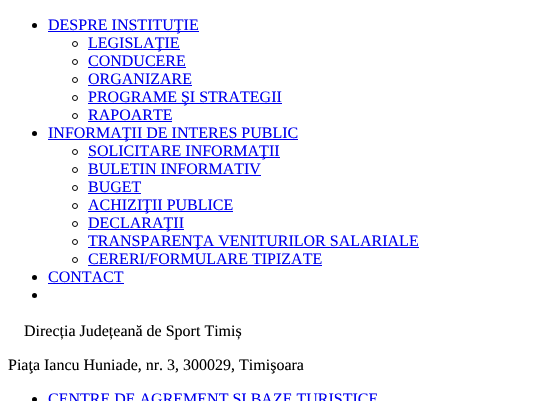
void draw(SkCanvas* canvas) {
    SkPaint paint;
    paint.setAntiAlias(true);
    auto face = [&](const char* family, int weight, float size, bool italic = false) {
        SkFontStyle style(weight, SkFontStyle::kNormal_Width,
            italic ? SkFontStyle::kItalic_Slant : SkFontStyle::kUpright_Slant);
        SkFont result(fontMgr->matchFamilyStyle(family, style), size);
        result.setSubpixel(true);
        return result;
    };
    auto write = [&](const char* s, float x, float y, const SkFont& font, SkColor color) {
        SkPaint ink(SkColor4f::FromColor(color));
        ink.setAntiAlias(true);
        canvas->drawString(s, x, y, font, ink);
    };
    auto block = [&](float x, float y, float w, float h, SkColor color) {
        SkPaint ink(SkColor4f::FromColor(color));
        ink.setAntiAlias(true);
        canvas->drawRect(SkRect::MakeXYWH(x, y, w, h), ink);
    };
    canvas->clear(SK_ColorWHITE);
    paint.setColor(SK_ColorBLACK);
    canvas->drawCircle(34.5f, 25.5f, 2.5f, paint);
    block(48, 31, 151, 1, SkColorSetRGB(0, 0, 238));
    auto kFont1 = face("Liberation Serif", 400, 16);
    write("DESPRE INSTITUŢIE", 48, 30, kFont1, SkColorSetRGB(0, 0, 238));
    paint.setStyle(SkPaint::kStroke_Style);
    paint.setStrokeWidth(1);
    canvas->drawCircle(75, 44, 2.5f, paint);
    block(88, 49, 92, 1, SkColorSetRGB(0, 0, 238));
    write("LEGISLAŢIE", 88, 48, kFont1, SkColorSetRGB(0, 0, 238));
    canvas->drawCircle(75, 62, 2.5f, paint);
    write("CONDUCERE", 88, 66, kFont1, SkColorSetRGB(0, 0, 238));
    block(88, 67, 98, 1, SkColorSetRGB(0, 0, 238));
    canvas->drawCircle(75, 80, 2.5f, paint);
    write("ORGANIZARE", 88, 84, kFont1, SkColorSetRGB(0, 0, 238));
    block(88, 85, 104, 1, SkColorSetRGB(0, 0, 238));
    canvas->drawCircle(75, 98, 2.5f, paint);
    block(88, 103, 194, 1, SkColorSetRGB(0, 0, 238));
    write("PROGRAME ŞI STRATEGII", 88, 102, kFont1, SkColorSetRGB(0, 0, 238));
    canvas->drawCircle(75, 116, 2.5f, paint);
    write("RAPOARTE", 88, 120, kFont1, SkColorSetRGB(0, 0, 238));
    block(88, 121, 84, 1, SkColorSetRGB(0, 0, 238));
    paint.setStyle(SkPaint::kFill_Style);
    canvas->drawCircle(34.5f, 133.5f, 2.5f, paint);
    block(48, 139, 250, 1, SkColorSetRGB(0, 0, 238));
    write("INFORMAŢII DE INTERES PUBLIC", 48, 138, kFont1, SkColorSetRGB(0, 0, 238));
    paint.setStyle(SkPaint::kStroke_Style);
    canvas->drawCircle(75, 152, 2.5f, paint);
    block(88, 157, 192, 1, SkColorSetRGB(0, 0, 238));
    write("SOLICITARE INFORMAŢII", 88, 156, kFont1, SkColorSetRGB(0, 0, 238));
    canvas->drawCircle(75, 170, 2.5f, paint);
    write("BULETIN INFORMATIV", 88, 174, kFont1, SkColorSetRGB(0, 0, 238));
    block(88, 175, 173, 1, SkColorSetRGB(0, 0, 238));
    canvas->drawCircle(75, 188, 2.5f, paint);
    write("BUGET", 88, 192, kFont1, SkColorSetRGB(0, 0, 238));
    block(88, 193, 53, 1, SkColorSetRGB(0, 0, 238));
    canvas->drawCircle(75, 206, 2.5f, paint);
    block(88, 211, 145, 1, SkColorSetRGB(0, 0, 238));
    write("ACHIZIŢII PUBLICE", 88, 210, kFont1, SkColorSetRGB(0, 0, 238));
    canvas->drawCircle(75, 224, 2.5f, paint);
    block(88, 229, 96, 1, SkColorSetRGB(0, 0, 238));
    write("DECLARAŢII", 88, 228, kFont1, SkColorSetRGB(0, 0, 238));
    canvas->drawCircle(75, 242, 2.5f, paint);
    block(88, 247, 331, 1, SkColorSetRGB(0, 0, 238));
    write("TRANSPARENŢA VENITURILOR SALARIALE", 88, 246, kFont1, SkColorSetRGB(0, 0, 238));
    canvas->drawCircle(75, 260, 2.5f, paint);
    write("CERERI/FORMULARE TIPIZATE", 88, 264, kFont1, SkColorSetRGB(0, 0, 238));
    block(88, 265, 234, 1, SkColorSetRGB(0, 0, 238));
    paint.setStyle(SkPaint::kFill_Style);
    canvas->drawCircle(34.5f, 277.5f, 2.5f, paint);
    write("CONTACT", 48, 282, kFont1, SkColorSetRGB(0, 0, 238));
    block(48, 283, 76, 1, SkColorSetRGB(0, 0, 238));
    canvas->drawCircle(34.5f, 295.5f, 2.5f, paint);
    write("Direcția Județeană de Sport Timiș", 24, 336, kFont1, SK_ColorBLACK);
    write("Piaţa Iancu Huniade, nr. 3, 300029, Timişoara", 8, 370, kFont1, SK_ColorBLACK);
    canvas->drawCircle(34.5f, 399.5f, 2.5f, paint);
    write("CENTRE DE AGREMENT ŞI BAZE TURISTICE", 48, 404, kFont1, SkColorSetRGB(0, 0, 238));
}
